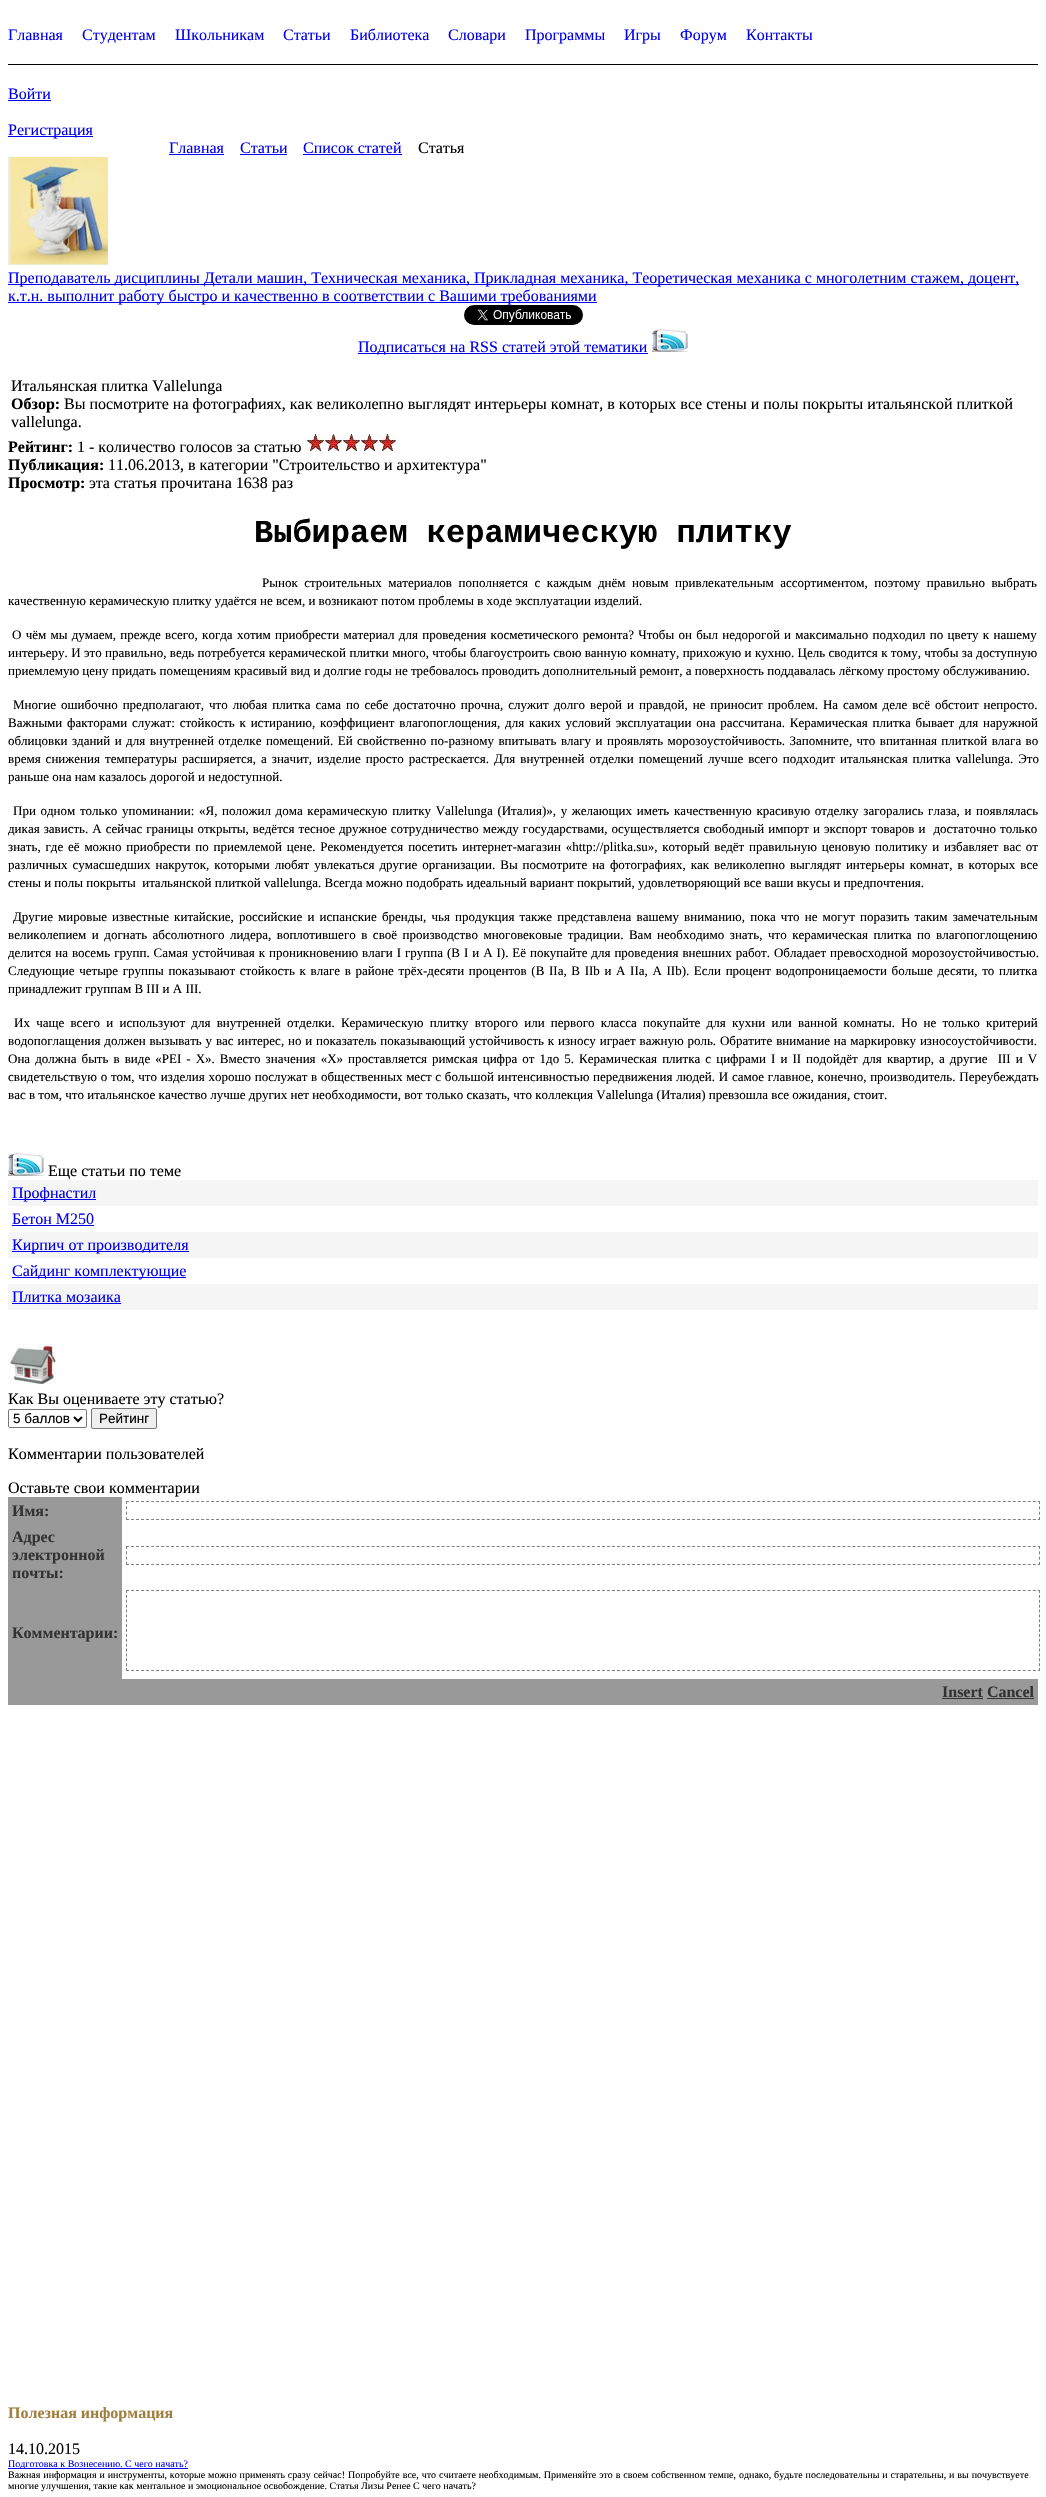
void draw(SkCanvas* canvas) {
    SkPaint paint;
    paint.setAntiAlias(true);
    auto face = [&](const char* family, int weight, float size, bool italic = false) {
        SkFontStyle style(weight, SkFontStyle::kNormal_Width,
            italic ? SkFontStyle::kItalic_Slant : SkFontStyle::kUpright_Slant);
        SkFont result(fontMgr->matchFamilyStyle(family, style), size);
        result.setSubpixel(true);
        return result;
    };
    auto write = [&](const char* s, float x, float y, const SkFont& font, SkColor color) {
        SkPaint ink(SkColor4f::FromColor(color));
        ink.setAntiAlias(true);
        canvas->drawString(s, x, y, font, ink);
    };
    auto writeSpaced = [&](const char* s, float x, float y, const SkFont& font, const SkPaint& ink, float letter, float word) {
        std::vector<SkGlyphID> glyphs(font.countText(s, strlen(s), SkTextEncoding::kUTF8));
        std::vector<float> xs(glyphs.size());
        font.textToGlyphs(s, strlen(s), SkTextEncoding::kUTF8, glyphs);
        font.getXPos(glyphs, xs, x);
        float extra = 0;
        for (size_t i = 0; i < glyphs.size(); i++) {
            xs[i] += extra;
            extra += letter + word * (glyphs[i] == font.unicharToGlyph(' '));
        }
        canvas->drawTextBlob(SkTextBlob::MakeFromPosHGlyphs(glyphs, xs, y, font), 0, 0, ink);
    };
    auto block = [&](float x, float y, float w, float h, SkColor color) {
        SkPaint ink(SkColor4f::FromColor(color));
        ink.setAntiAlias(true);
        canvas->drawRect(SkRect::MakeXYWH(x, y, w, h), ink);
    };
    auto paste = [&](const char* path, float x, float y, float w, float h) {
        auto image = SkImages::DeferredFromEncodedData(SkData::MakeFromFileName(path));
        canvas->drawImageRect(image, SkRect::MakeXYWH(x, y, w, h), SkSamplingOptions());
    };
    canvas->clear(SK_ColorWHITE);
    auto kFont1 = face("Liberation Serif", 400, 16);
    write("Главная", 8, 40, kFont1, SkColorSetRGB(0, 0, 238));
    write("Студентам", 82, 40, kFont1, SkColorSetRGB(0, 0, 238));
    write("Школьникам", 175, 40, kFont1, SkColorSetRGB(0, 0, 238));
    write("Статьи", 283, 40, kFont1, SkColorSetRGB(0, 0, 238));
    write("Библиотека", 350, 40, kFont1, SkColorSetRGB(0, 0, 238));
    write("Словари", 448, 40, kFont1, SkColorSetRGB(0, 0, 238));
    write("Программы", 525, 40, kFont1, SkColorSetRGB(0, 0, 238));
    write("Игры", 624, 40, kFont1, SkColorSetRGB(0, 0, 238));
    write("Форум", 680, 40, kFont1, SkColorSetRGB(0, 0, 238));
    write("Контакты", 746, 40, kFont1, SkColorSetRGB(0, 0, 238));
    block(8, 64, 1030, 1, SK_ColorBLACK);
    write("Войти", 8, 99, kFont1, SkColorSetRGB(0, 0, 238));
    block(8, 100, 43, 1, SkColorSetRGB(0, 0, 238));
    block(8, 136, 85, 1, SkColorSetRGB(0, 0, 238));
    write("Регистрация", 8, 135, kFont1, SkColorSetRGB(0, 0, 238));
    write("Главная", 169, 153, kFont1, SkColorSetRGB(0, 0, 238));
    block(169, 154, 55, 1, SkColorSetRGB(0, 0, 238));
    write("Статьи", 240, 153, kFont1, SkColorSetRGB(0, 0, 238));
    block(240, 154, 47, 1, SkColorSetRGB(0, 0, 238));
    write("Список статей", 303, 153, kFont1, SkColorSetRGB(0, 0, 238));
    block(303, 154, 99, 1, SkColorSetRGB(0, 0, 238));
    write("Статья", 418, 153, kFont1, SK_ColorBLACK);
    paste("pic1.png", 8, 157, 100, 108);
    block(8, 284, 1011, 1, SkColorSetRGB(0, 0, 238));
    write("Преподаватель дисциплины Детали машин, Техническая механика, Прикладная механика, Теоретическая механика с многолетним стажем, доцент,", 8, 283, kFont1, SkColorSetRGB(0, 0, 238));
    block(8, 302, 589, 1, SkColorSetRGB(0, 0, 238));
    write("к.т.н. выполнит работу быстро и качественно в соответствии с Вашими требованиями", 8, 301, kFont1, SkColorSetRGB(0, 0, 238));
    paste("pic2.png", 464, 305, 119, 20);
    block(358, 353, 290, 1, SkColorSetRGB(0, 0, 238));
    write("Подписаться на RSS статей этой тематики", 358, 352, kFont1, SkColorSetRGB(0, 0, 238));
    paste("pic3.png", 652, 329, 36, 23);
    write("Итальянская плитка Vallelunga", 11, 391, kFont1, SK_ColorBLACK);
    auto kFont2 = face("Liberation Serif", 700, 16);
    write("Обзор:", 11, 409, kFont2, SK_ColorBLACK);
    write("Вы посмотрите на фотографиях, как великолепно выглядят интерьеры комнат, в которых все стены и полы покрыты итальянской плиткой", 64, 409, kFont1, SK_ColorBLACK);
    write("vallelunga.", 11, 427, kFont1, SK_ColorBLACK);
    write("Рейтинг:", 8, 452, kFont2, SK_ColorBLACK);
    write("1 - количество голосов за статью", 77, 452, kFont1, SK_ColorBLACK);
    paste("pic4.png", 306, 434, 90, 18);
    write("Публикация:", 8, 470, kFont2, SK_ColorBLACK);
    write("11.06.2013, в категории \"Строительство и архитектура\"", 108, 470, kFont1, SK_ColorBLACK);
    write("Просмотр:", 8, 488, kFont2, SK_ColorBLACK);
    write("эта статья прочитана 1638 раз", 89, 488, kFont1, SK_ColorBLACK);
    auto kFont3 = face("Liberation Mono", 700, 32);
    write("Выбираем керамическую плитку", 254, 542, kFont3, SK_ColorBLACK);
    auto kFont4 = face("Liberation Serif", 400, 13);
    paint.setColor(SK_ColorBLACK);
    writeSpaced("Рынок строительных материалов пополняется с каждым днём новым привлекательным ассортиментом, поэтому правильно выбрать", 262, 587, kFont4, paint, 0, 3.25f);
    write("качественную керамическую плитку удаётся не всем, и возникают потом проблемы в ходе эксплуатации изделий.", 8, 605, kFont4, SK_ColorBLACK);
    writeSpaced("О чём мы думаем, прежде всего, когда хотим приобрести материал для проведения косметического ремонта? Чтобы он был недорогой и максимально подходил по цвету к нашему", 12, 639, kFont4, paint, 0, 1);
    writeSpaced("интерьеру. И это правильно, ведь потребуется керамической плитки много, чтобы благоустроить свою ванную комнату, прихожую и кухню. Цель сводится к тому, чтобы за доступную", 8, 657, kFont4, paint, 0, 0.1f);
    write("приемлемую цену придать помещениям красивый вид и долгие годы не требовалось проводить дополнительный ремонт, а поверхность поддавалась лёгкому простому обслуживанию.", 8, 675, kFont4, SK_ColorBLACK);
    writeSpaced("Многие ошибочно предполагают, что любая плитка сама по себе достаточно прочна, служит долго верой и правдой, не приносит проблем. На самом деле всё обстоит непросто.", 13, 709, kFont4, paint, 0, 1.75f);
    writeSpaced("Важными факторами служат: стойкость к истиранию, коэффициент влагопоглощения, для каких условий эксплуатации она рассчитана. Керамическая плитка бывает для наружной", 8, 727, kFont4, paint, 0, 1.55f);
    writeSpaced("облицовки зданий и для внутренней отделке помещений. Ей свойственно по-разному впитывать влагу и проявлять морозоустойчивость. Запомните, что впитанная плиткой влага во", 8, 745, kFont4, paint, 0, 1.2f);
    writeSpaced("время снижения температуры расширяется, а значит, изделие просто растрескается. Для внутренней отделки помещений лучше всего подходит итальянская плитка vallelunga. Это", 8, 763, kFont4, paint, 0, 1.75f);
    write("раньше она нам казалось дорогой и недоступной.", 8, 781, kFont4, SK_ColorBLACK);
    writeSpaced("При одном только упоминании: «Я, положил дома керамическую плитку Vallelunga (Италия)», у желающих иметь качественную красивую отделку загорались глаза, и появлялась", 13, 815, kFont4, paint, 0, 1.4f);
    writeSpaced("дикая зависть. А сейчас границы открыты, ведётся тесное дружное сотрудничество между государствами, осуществляется свободный импорт и экспорт товаров и  достаточно только", 8, 833, kFont4, paint, 0, 0.75f);
    writeSpaced("знать, где её можно приобрести по приемлемой цене. Рекомендуется посетить интернет-магазин «http://plitka.su», который ведёт правильную ценовую политику и избавляет вас от", 8, 851, kFont4, paint, 0, 1.55f);
    writeSpaced("различных сумасшедших накруток, которыми любят увлекаться другие организации. Вы посмотрите на фотографиях, как великолепно выглядят интерьеры комнат, в которых все", 8, 869, kFont4, paint, 0, 1.75f);
    write("стены и полы покрыты  итальянской плиткой vallelunga. Всегда можно подобрать идеальный вариант покрытий, удовлетворяющий все ваши вкусы и предпочтения.", 8, 887, kFont4, SK_ColorBLACK);
    writeSpaced("Другие мировые известные китайские, российские и испанские бренды, чья продукция также представлена вашему вниманию, пока что не могут поразить таким замечательным", 13, 921, kFont4, paint, 0, 1.9f);
    writeSpaced("великолепием и догнать абсолютного лидера, воплотившего в своё производство многовековые традиции. Вам необходимо знать, что керамическая плитка по влагопоглощению", 8, 939, kFont4, paint, 0, 2.25f);
    writeSpaced("делится на восемь групп. Самая устойчивая к проникновению влаги I группа (B I и A I). Её покупайте для проведения внешних работ. Обладает превосходной морозоустойчивостью.", 8, 957, kFont4, paint, 0, 0.7f);
    writeSpaced("Следующие четыре группы показывают стойкость к влаге в районе трёх-десяти процентов (В IIa, В IIb и А IIa, А IIb). Если процент водопроницаемости больше десяти, то плитка", 8, 975, kFont4, paint, 0, 1.4f);
    write("принадлежит группам В III и А III.", 8, 993, kFont4, SK_ColorBLACK);
    writeSpaced("Их чаще всего и используют для внутренней отделки. Керамическую плитку второго или первого класса покупайте для кухни или ванной комнаты. Но не только критерий", 14, 1027, kFont4, paint, 0, 3);
    writeSpaced("водопоглащения должен вызывать у вас интерес, но и показатель показывающий устойчивость к износу играет важную роль. Обратите внимание на маркировку износоустойчивости.", 8, 1045, kFont4, paint, 0, 0.6f);
    writeSpaced("Она должна быть в виде «PEI - X». Вместо значения «Х» проставляется римская цифра от 1до 5. Керамическая плитка с цифрами I и II подойдёт для квартир, а другие  III и V", 8, 1063, kFont4, paint, 0, 1.8f);
    writeSpaced("свидетельствую о том, что изделия хорошо послужат в общественных мест с большой интенсивностью передвижения людей. И самое главное, конечно, производитель. Переубеждать", 8, 1081, kFont4, paint, 0, 0.5f);
    write("вас в том, что итальянское качество лучше других нет необходимости, вот только сказать, что коллекция Vallelunga (Италия) превзошла все ожидания, стоит.", 8, 1099, kFont4, SK_ColorBLACK);
    paste("pic3.png", 8, 1153, 36, 23);
    write("Еще статьи по теме", 48, 1176, kFont1, SK_ColorBLACK);
    block(8, 1180, 1030, 26, SkColorSetRGB(245, 245, 245));
    block(12, 1199, 84, 1, SkColorSetRGB(0, 0, 238));
    write("Профнастил", 12, 1198, kFont1, SkColorSetRGB(0, 0, 238));
    write("Бетон М250", 12, 1224, kFont1, SkColorSetRGB(0, 0, 238));
    block(12, 1225, 82, 1, SkColorSetRGB(0, 0, 238));
    block(8, 1232, 1030, 26, SkColorSetRGB(245, 245, 245));
    block(12, 1251, 177, 1, SkColorSetRGB(0, 0, 238));
    write("Кирпич от производителя", 12, 1250, kFont1, SkColorSetRGB(0, 0, 238));
    block(12, 1277, 174, 1, SkColorSetRGB(0, 0, 238));
    write("Сайдинг комплектующие", 12, 1276, kFont1, SkColorSetRGB(0, 0, 238));
    block(8, 1284, 1030, 26, SkColorSetRGB(245, 245, 245));
    write("Плитка мозаика", 12, 1302, kFont1, SkColorSetRGB(0, 0, 238));
    block(12, 1303, 109, 1, SkColorSetRGB(0, 0, 238));
    paste("pic5.png", 8, 1344, 48, 40);
    write("Как Вы оцениваете эту статью?", 8, 1404, kFont1, SK_ColorBLACK);
    paint.setStyle(SkPaint::kStroke_Style);
    paint.setStrokeWidth(1);
    paint.setColor(SkColorSetRGB(118, 118, 118));
    canvas->drawRoundRect(SkRect::MakeXYWH(8.5f, 1409.5f, 78, 18), 1.5f, 1.5f, paint);
    paint.setStrokeWidth(2);
    paint.setColor(SK_ColorBLACK);
    canvas->drawPath(SkPathBuilder().moveTo(74, 1417).lineTo(78, 1421).lineTo(82, 1417).detach(), paint);
    auto kFont5 = face("Liberation Sans", 400, 13.5f);
    write("5 баллов", 13, 1423, kFont5, SK_ColorBLACK);
    paint.setStyle(SkPaint::kFill_Style);
    paint.setColor(SkColorSetRGB(239, 239, 239));
    canvas->drawRoundRect(SkRect::MakeXYWH(91.5f, 1408.5f, 65, 20), 1.5f, 1.5f, paint);
    paint.setStyle(SkPaint::kStroke_Style);
    paint.setStrokeWidth(1);
    paint.setColor(SkColorSetRGB(118, 118, 118));
    canvas->drawRoundRect(SkRect::MakeXYWH(91.5f, 1408.5f, 65, 20), 1.5f, 1.5f, paint);
    write("Рейтинг", 99, 1423, kFont5, SK_ColorBLACK);
    write("Комментарии пользователей", 8, 1459, kFont1, SK_ColorBLACK);
    write("Оставьте свои комментарии", 8, 1493, kFont1, SK_ColorBLACK);
    block(8, 1497, 114, 182, SkColorSetRGB(153, 153, 153));
    write("Имя:", 12, 1516, kFont2, SkColorSetRGB(51, 51, 51));
    paint.setColor(SkColorSetRGB(128, 128, 128));
    paint.setPathEffect(SkDashPathEffect::Make({{3, 2.01f}}, 0));
    canvas->drawPath(SkPathBuilder().moveTo(126, 1501.5f).lineTo(1040, 1501.5f).detach(), paint);
    paint.setPathEffect(nullptr);
    paint.setPathEffect(SkDashPathEffect::Make({{3, 2.33f}}, 0));
    canvas->drawPath(SkPathBuilder().moveTo(1039.5f, 1501).lineTo(1039.5f, 1520).detach(), paint);
    paint.setPathEffect(nullptr);
    paint.setPathEffect(SkDashPathEffect::Make({{3, 2.01f}}, 0));
    canvas->drawPath(SkPathBuilder().moveTo(126, 1519.5f).lineTo(1040, 1519.5f).detach(), paint);
    paint.setPathEffect(nullptr);
    paint.setPathEffect(SkDashPathEffect::Make({{3, 2.33f}}, 0));
    canvas->drawPath(SkPathBuilder().moveTo(126.5f, 1501).lineTo(126.5f, 1520).detach(), paint);
    paint.setPathEffect(nullptr);
    write("Адрес", 12, 1542, kFont2, SkColorSetRGB(51, 51, 51));
    write("электронной", 12, 1560, kFont2, SkColorSetRGB(51, 51, 51));
    write("почты:", 12, 1578, kFont2, SkColorSetRGB(51, 51, 51));
    paint.setPathEffect(SkDashPathEffect::Make({{3, 2.01f}}, 0));
    canvas->drawPath(SkPathBuilder().moveTo(126, 1546.5f).lineTo(1040, 1546.5f).detach(), paint);
    paint.setPathEffect(nullptr);
    paint.setPathEffect(SkDashPathEffect::Make({{3, 2.33f}}, 0));
    canvas->drawPath(SkPathBuilder().moveTo(1039.5f, 1546).lineTo(1039.5f, 1565).detach(), paint);
    paint.setPathEffect(nullptr);
    paint.setPathEffect(SkDashPathEffect::Make({{3, 2.01f}}, 0));
    canvas->drawPath(SkPathBuilder().moveTo(126, 1564.5f).lineTo(1040, 1564.5f).detach(), paint);
    paint.setPathEffect(nullptr);
    paint.setPathEffect(SkDashPathEffect::Make({{3, 2.33f}}, 0));
    canvas->drawPath(SkPathBuilder().moveTo(126.5f, 1546).lineTo(126.5f, 1565).detach(), paint);
    paint.setPathEffect(nullptr);
    write("Комментарии:", 12, 1638, kFont2, SkColorSetRGB(51, 51, 51));
    paint.setPathEffect(SkDashPathEffect::Make({{3, 2.01f}}, 0));
    canvas->drawPath(SkPathBuilder().moveTo(126, 1590.5f).lineTo(1040, 1590.5f).detach(), paint);
    paint.setPathEffect(nullptr);
    paint.setPathEffect(SkDashPathEffect::Make({{3, 1.88f}}, 0));
    canvas->drawPath(SkPathBuilder().moveTo(1039.5f, 1590).lineTo(1039.5f, 1671).detach(), paint);
    paint.setPathEffect(nullptr);
    paint.setPathEffect(SkDashPathEffect::Make({{3, 2.01f}}, 0));
    canvas->drawPath(SkPathBuilder().moveTo(126, 1670.5f).lineTo(1040, 1670.5f).detach(), paint);
    paint.setPathEffect(nullptr);
    paint.setPathEffect(SkDashPathEffect::Make({{3, 1.88f}}, 0));
    canvas->drawPath(SkPathBuilder().moveTo(126.5f, 1590).lineTo(126.5f, 1671).detach(), paint);
    paint.setPathEffect(nullptr);
    block(8, 1679, 1030, 26, SkColorSetRGB(153, 153, 153));
    write("Insert Cancel", 942, 1697, kFont2, SkColorSetRGB(51, 51, 51));
    block(942, 1698, 41, 1, SkColorSetRGB(51, 51, 51));
    block(987, 1698, 47, 1, SkColorSetRGB(51, 51, 51));
    write("Полезная информация", 8, 2418, kFont2, SkColorSetRGB(160, 128, 64));
    write("14.10.2015", 8, 2454, kFont1, SK_ColorBLACK);
    block(8, 2468, 180, 1, SkColorSetRGB(0, 0, 238));
    auto kFont6 = face("Liberation Serif", 400, 10);
    write("Подготовка к Вознесению. С чего начать?", 8, 2467, kFont6, SkColorSetRGB(0, 0, 238));
    paint.setStyle(SkPaint::kFill_Style);
    paint.setColor(SK_ColorBLACK);
    writeSpaced("Важная информация и инструменты, которые можно применять сразу сейчас! Попробуйте все, что считаете необходимым. Применяйте это в своем собственном темпе, однако, будьте последовательны и старательны, и вы почувствуете", 8, 2478, kFont6, paint, 0, 0.4f);
    write("многие улучшения, такие как ментальное и эмоциональное освобождение. Статья Лизы Ренее С чего начать?", 8, 2489, kFont6, SK_ColorBLACK);
}
